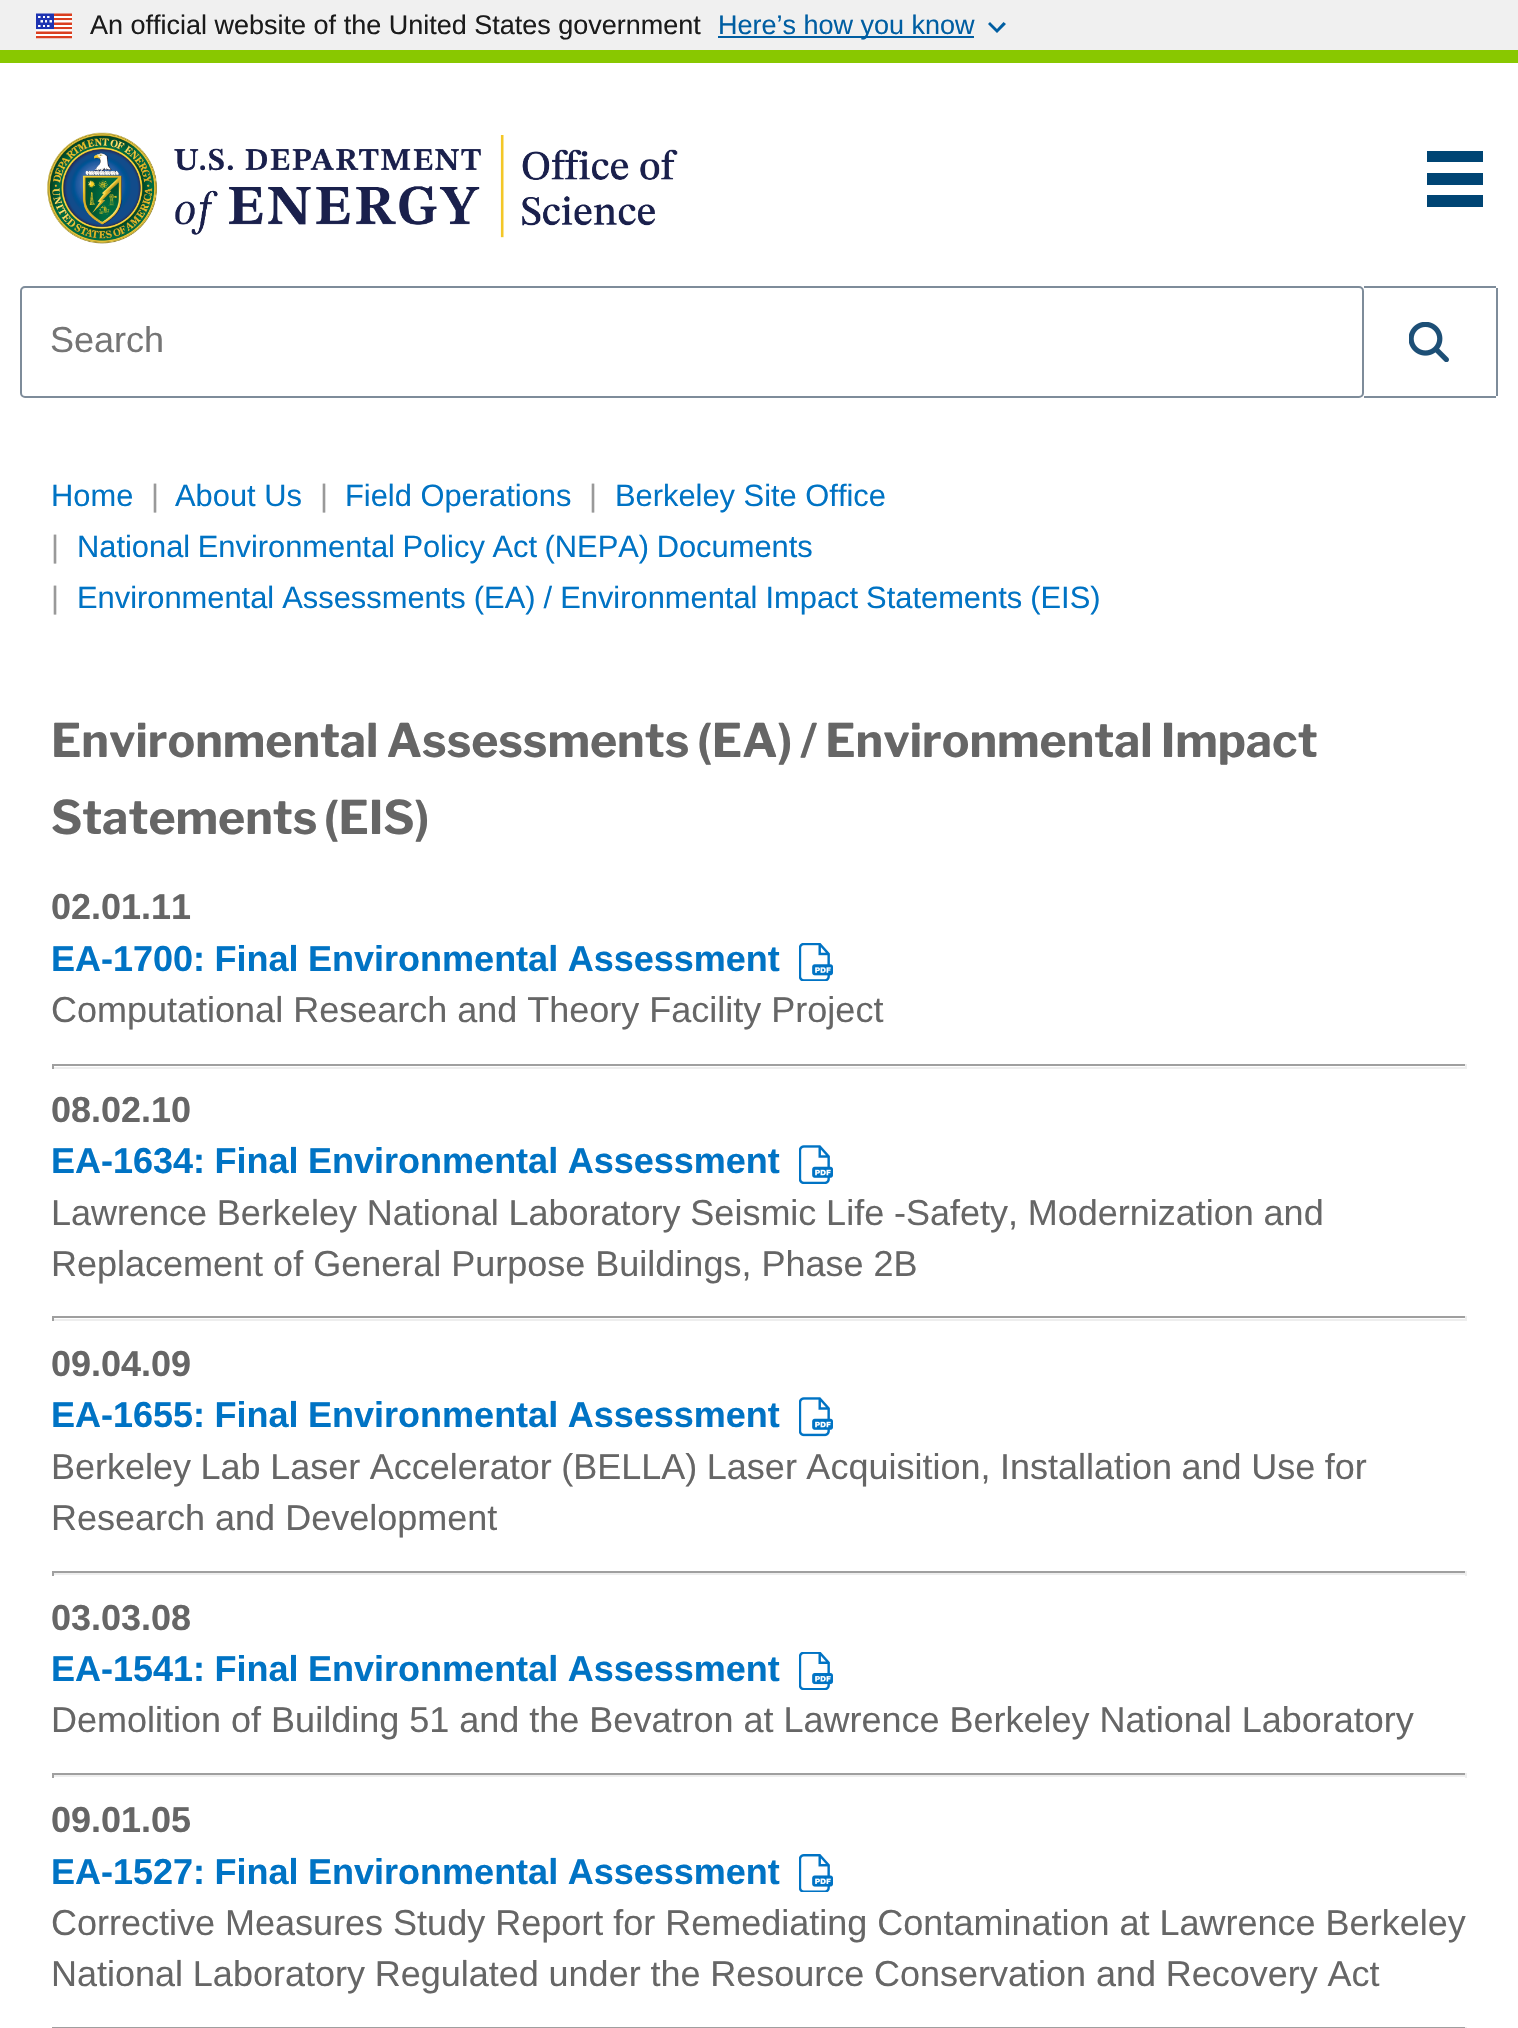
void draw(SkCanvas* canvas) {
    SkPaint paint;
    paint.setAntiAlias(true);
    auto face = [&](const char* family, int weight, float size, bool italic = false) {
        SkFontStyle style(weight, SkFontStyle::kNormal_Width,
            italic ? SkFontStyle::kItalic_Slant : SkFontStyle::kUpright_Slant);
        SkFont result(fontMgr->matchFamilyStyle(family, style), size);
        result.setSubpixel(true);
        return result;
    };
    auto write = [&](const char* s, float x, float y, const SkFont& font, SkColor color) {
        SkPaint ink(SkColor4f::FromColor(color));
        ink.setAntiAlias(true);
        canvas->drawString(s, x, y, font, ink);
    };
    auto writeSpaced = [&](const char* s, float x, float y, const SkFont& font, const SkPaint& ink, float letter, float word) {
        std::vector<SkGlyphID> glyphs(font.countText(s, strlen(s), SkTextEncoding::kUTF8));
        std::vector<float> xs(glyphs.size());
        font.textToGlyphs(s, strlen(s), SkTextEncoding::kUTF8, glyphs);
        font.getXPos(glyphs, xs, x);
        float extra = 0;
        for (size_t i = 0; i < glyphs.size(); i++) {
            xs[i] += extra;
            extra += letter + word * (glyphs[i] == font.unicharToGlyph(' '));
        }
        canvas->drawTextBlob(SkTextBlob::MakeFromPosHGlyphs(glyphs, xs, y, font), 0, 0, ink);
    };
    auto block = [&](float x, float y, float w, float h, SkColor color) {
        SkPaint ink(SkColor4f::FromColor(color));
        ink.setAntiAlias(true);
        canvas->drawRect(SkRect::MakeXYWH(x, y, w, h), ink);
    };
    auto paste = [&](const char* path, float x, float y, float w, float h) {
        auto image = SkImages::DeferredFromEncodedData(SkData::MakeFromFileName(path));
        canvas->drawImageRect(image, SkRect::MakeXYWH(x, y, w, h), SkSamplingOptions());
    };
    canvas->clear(SK_ColorWHITE);
    block(0, 0, 1518, 50, SkColorSetRGB(240, 240, 240));
    paste("pic1.png", 36, 13, 36, 26);
    auto kFont1 = face("Liberation Sans", 400, 27);
    write("An official website of the United States government", 90, 34, kFont1, SkColorSetRGB(27, 27, 27));
    block(718, 36, 256, 2, SkColorSetRGB(0, 94, 162));
    write("Here’s how you know", 718, 34, kFont1, SkColorSetRGB(0, 94, 162));
    paint.setColor(SkColorSetRGB(0, 94, 162));
    canvas->drawPath(SkPathBuilder().moveTo(1003.5f, 22).lineTo(997, 29).lineTo(990, 22).lineTo(988, 24).lineTo(997, 33).lineTo(1006, 24).close().detach(), paint);
    block(0, 50, 1518, 13, SkColorSetRGB(137, 200, 0));
    paste("pic2.png", 47, 132, 631, 112);
    canvas->save();
    canvas->clipRect(SkRect::MakeXYWH(1427, 151, 72, 72));
    paint.setColor(SkColorSetRGB(0, 69, 116));
    canvas->drawPath(SkPathBuilder().moveTo(1426, 157).lineTo(1426, 151).lineTo(1483, 151).lineTo(1483, 162).lineTo(1426, 162).close().moveTo(1426, 179).lineTo(1426, 173).lineTo(1483, 173).lineTo(1483, 185).lineTo(1426, 185).close().moveTo(1426, 201).lineTo(1426, 195).lineTo(1483, 195).lineTo(1483, 207).lineTo(1426, 207).close().detach(), paint);
    canvas->restore();
    paint.setStyle(SkPaint::kStroke_Style);
    paint.setStrokeWidth(2);
    paint.setColor(SkColorSetRGB(126, 140, 154));
    canvas->drawRoundRect(SkRect::MakeXYWH(21, 287, 1342, 110), 4, 4, paint);
    auto kFont2 = face("Liberation Sans", 400, 36);
    write("Search", 50, 352, kFont2, SkColorSetRGB(117, 117, 117));
    block(1364, 286, 132, 2, SkColorSetRGB(126, 140, 154));
    block(1496, 288, 2, 108, SkColorSetRGB(126, 140, 154));
    block(1364, 396, 132, 2, SkColorSetRGB(126, 140, 154));
    paste("pic3.png", 1409, 322, 40, 40);
    auto kFont3 = face("Liberation Sans", 400, 30.85f);
    write("Home", 51, 506, kFont3, SkColorSetRGB(0, 115, 196));
    write("|", 151, 506, kFont3, SkColorSetRGB(153, 153, 153));
    write("About Us", 175, 506, kFont3, SkColorSetRGB(0, 115, 196));
    write("|", 320, 506, kFont3, SkColorSetRGB(153, 153, 153));
    write("Field Operations", 345, 506, kFont3, SkColorSetRGB(0, 115, 196));
    write("|", 589, 506, kFont3, SkColorSetRGB(153, 153, 153));
    write("Berkeley Site Office", 615, 506, kFont3, SkColorSetRGB(0, 115, 196));
    write("|", 51, 557, kFont3, SkColorSetRGB(153, 153, 153));
    paint.setStyle(SkPaint::kFill_Style);
    paint.setColor(SkColorSetRGB(0, 115, 196));
    writeSpaced("National Environmental Policy Act (NEPA) Documents", 77, 557, kFont3, paint, 0, -1);
    write("|", 51, 608, kFont3, SkColorSetRGB(153, 153, 153));
    writeSpaced("Environmental Assessments (EA) / Environmental Impact Statements (EIS)", 77, 608, kFont3, paint, 0, -0.5f);
    auto kFont4 = face("Libre Franklin", 700, 46.3f);
    paint.setColor(SkColorSetRGB(102, 102, 102));
    writeSpaced("Environmental Assessments (EA) / Environmental Impact", 51, 757, kFont4, paint, 0, -1.5f);
    writeSpaced("Statements (EIS)", 51, 834, kFont4, paint, 0, -3);
    auto kFont5 = face("Liberation Sans", 700, 36);
    write("02.01.11", 51, 919, kFont5, SkColorSetRGB(102, 102, 102));
    paint.setColor(SkColorSetRGB(0, 115, 196));
    writeSpaced("EA-1700: Final Environmental Assessment", 51, 971, kFont5, paint, 0, -0.5f);
    paste("pic4.png", 799, 943, 34, 38);
    write("Computational Research and Theory Facility Project", 51, 1022, kFont2, SkColorSetRGB(102, 102, 102));
    block(52, 1064, 1415, 2, SkColorSetRGB(159, 159, 159));
    block(1465, 1064, 2, 5, SkColorSetRGB(238, 238, 238));
    block(52, 1067, 1415, 2, SkColorSetRGB(238, 238, 238));
    block(52, 1064, 2, 5, SkColorSetRGB(159, 159, 159));
    write("08.02.10", 51, 1122, kFont5, SkColorSetRGB(102, 102, 102));
    writeSpaced("EA-1634: Final Environmental Assessment", 51, 1173, kFont5, paint, 0, -0.5f);
    paste("pic5.png", 799, 1145, 34, 39);
    paint.setColor(SkColorSetRGB(102, 102, 102));
    writeSpaced("Lawrence Berkeley National Laboratory Seismic Life -Safety, Modernization and", 51, 1225, kFont2, paint, 0, -0.25f);
    write("Replacement of General Purpose Buildings, Phase 2B", 51, 1276, kFont2, SkColorSetRGB(102, 102, 102));
    block(52, 1316, 1415, 2, SkColorSetRGB(159, 159, 159));
    block(1465, 1316, 2, 5, SkColorSetRGB(238, 238, 238));
    block(52, 1319, 1415, 2, SkColorSetRGB(238, 238, 238));
    block(52, 1316, 2, 5, SkColorSetRGB(159, 159, 159));
    write("09.04.09", 51, 1376, kFont5, SkColorSetRGB(102, 102, 102));
    paint.setColor(SkColorSetRGB(0, 115, 196));
    writeSpaced("EA-1655: Final Environmental Assessment", 51, 1427, kFont5, paint, 0, -0.5f);
    paste("pic6.png", 799, 1397, 34, 40);
    paint.setColor(SkColorSetRGB(102, 102, 102));
    writeSpaced("Berkeley Lab Laser Accelerator (BELLA) Laser Acquisition, Installation and Use for", 51, 1479, kFont2, paint, 0, -0.5f);
    write("Research and Development", 51, 1530, kFont2, SkColorSetRGB(102, 102, 102));
    block(52, 1571, 1415, 2, SkColorSetRGB(159, 159, 159));
    block(1465, 1571, 2, 5, SkColorSetRGB(238, 238, 238));
    block(52, 1573, 1415, 2, SkColorSetRGB(238, 238, 238));
    block(52, 1571, 2, 5, SkColorSetRGB(159, 159, 159));
    write("03.03.08", 51, 1630, kFont5, SkColorSetRGB(102, 102, 102));
    paint.setColor(SkColorSetRGB(0, 115, 196));
    writeSpaced("EA-1541: Final Environmental Assessment", 51, 1681, kFont5, paint, 0, -0.5f);
    paste("pic7.png", 799, 1652, 34, 38);
    write("Demolition of Building 51 and the Bevatron at Lawrence Berkeley National Laboratory", 51, 1732, kFont2, SkColorSetRGB(102, 102, 102));
    block(52, 1773, 1415, 2, SkColorSetRGB(159, 159, 159));
    block(1465, 1773, 2, 5, SkColorSetRGB(238, 238, 238));
    block(52, 1775, 1415, 2, SkColorSetRGB(238, 238, 238));
    block(52, 1773, 2, 5, SkColorSetRGB(159, 159, 159));
    write("09.01.05", 51, 1832, kFont5, SkColorSetRGB(102, 102, 102));
    writeSpaced("EA-1527: Final Environmental Assessment", 51, 1884, kFont5, paint, 0, -0.5f);
    paste("pic8.png", 799, 1854, 34, 38);
    write("Corrective Measures Study Report for Remediating Contamination at Lawrence Berkeley", 51, 1935, kFont2, SkColorSetRGB(102, 102, 102));
    paint.setColor(SkColorSetRGB(102, 102, 102));
    writeSpaced("National Laboratory Regulated under the Resource Conservation and Recovery Act", 51, 1986, kFont2, paint, 0, -0.25f);
    block(52, 2027, 1415, 1, SkColorSetRGB(159, 159, 159));
    block(1465, 2027, 2, 1, SkColorSetRGB(238, 238, 238));
}
